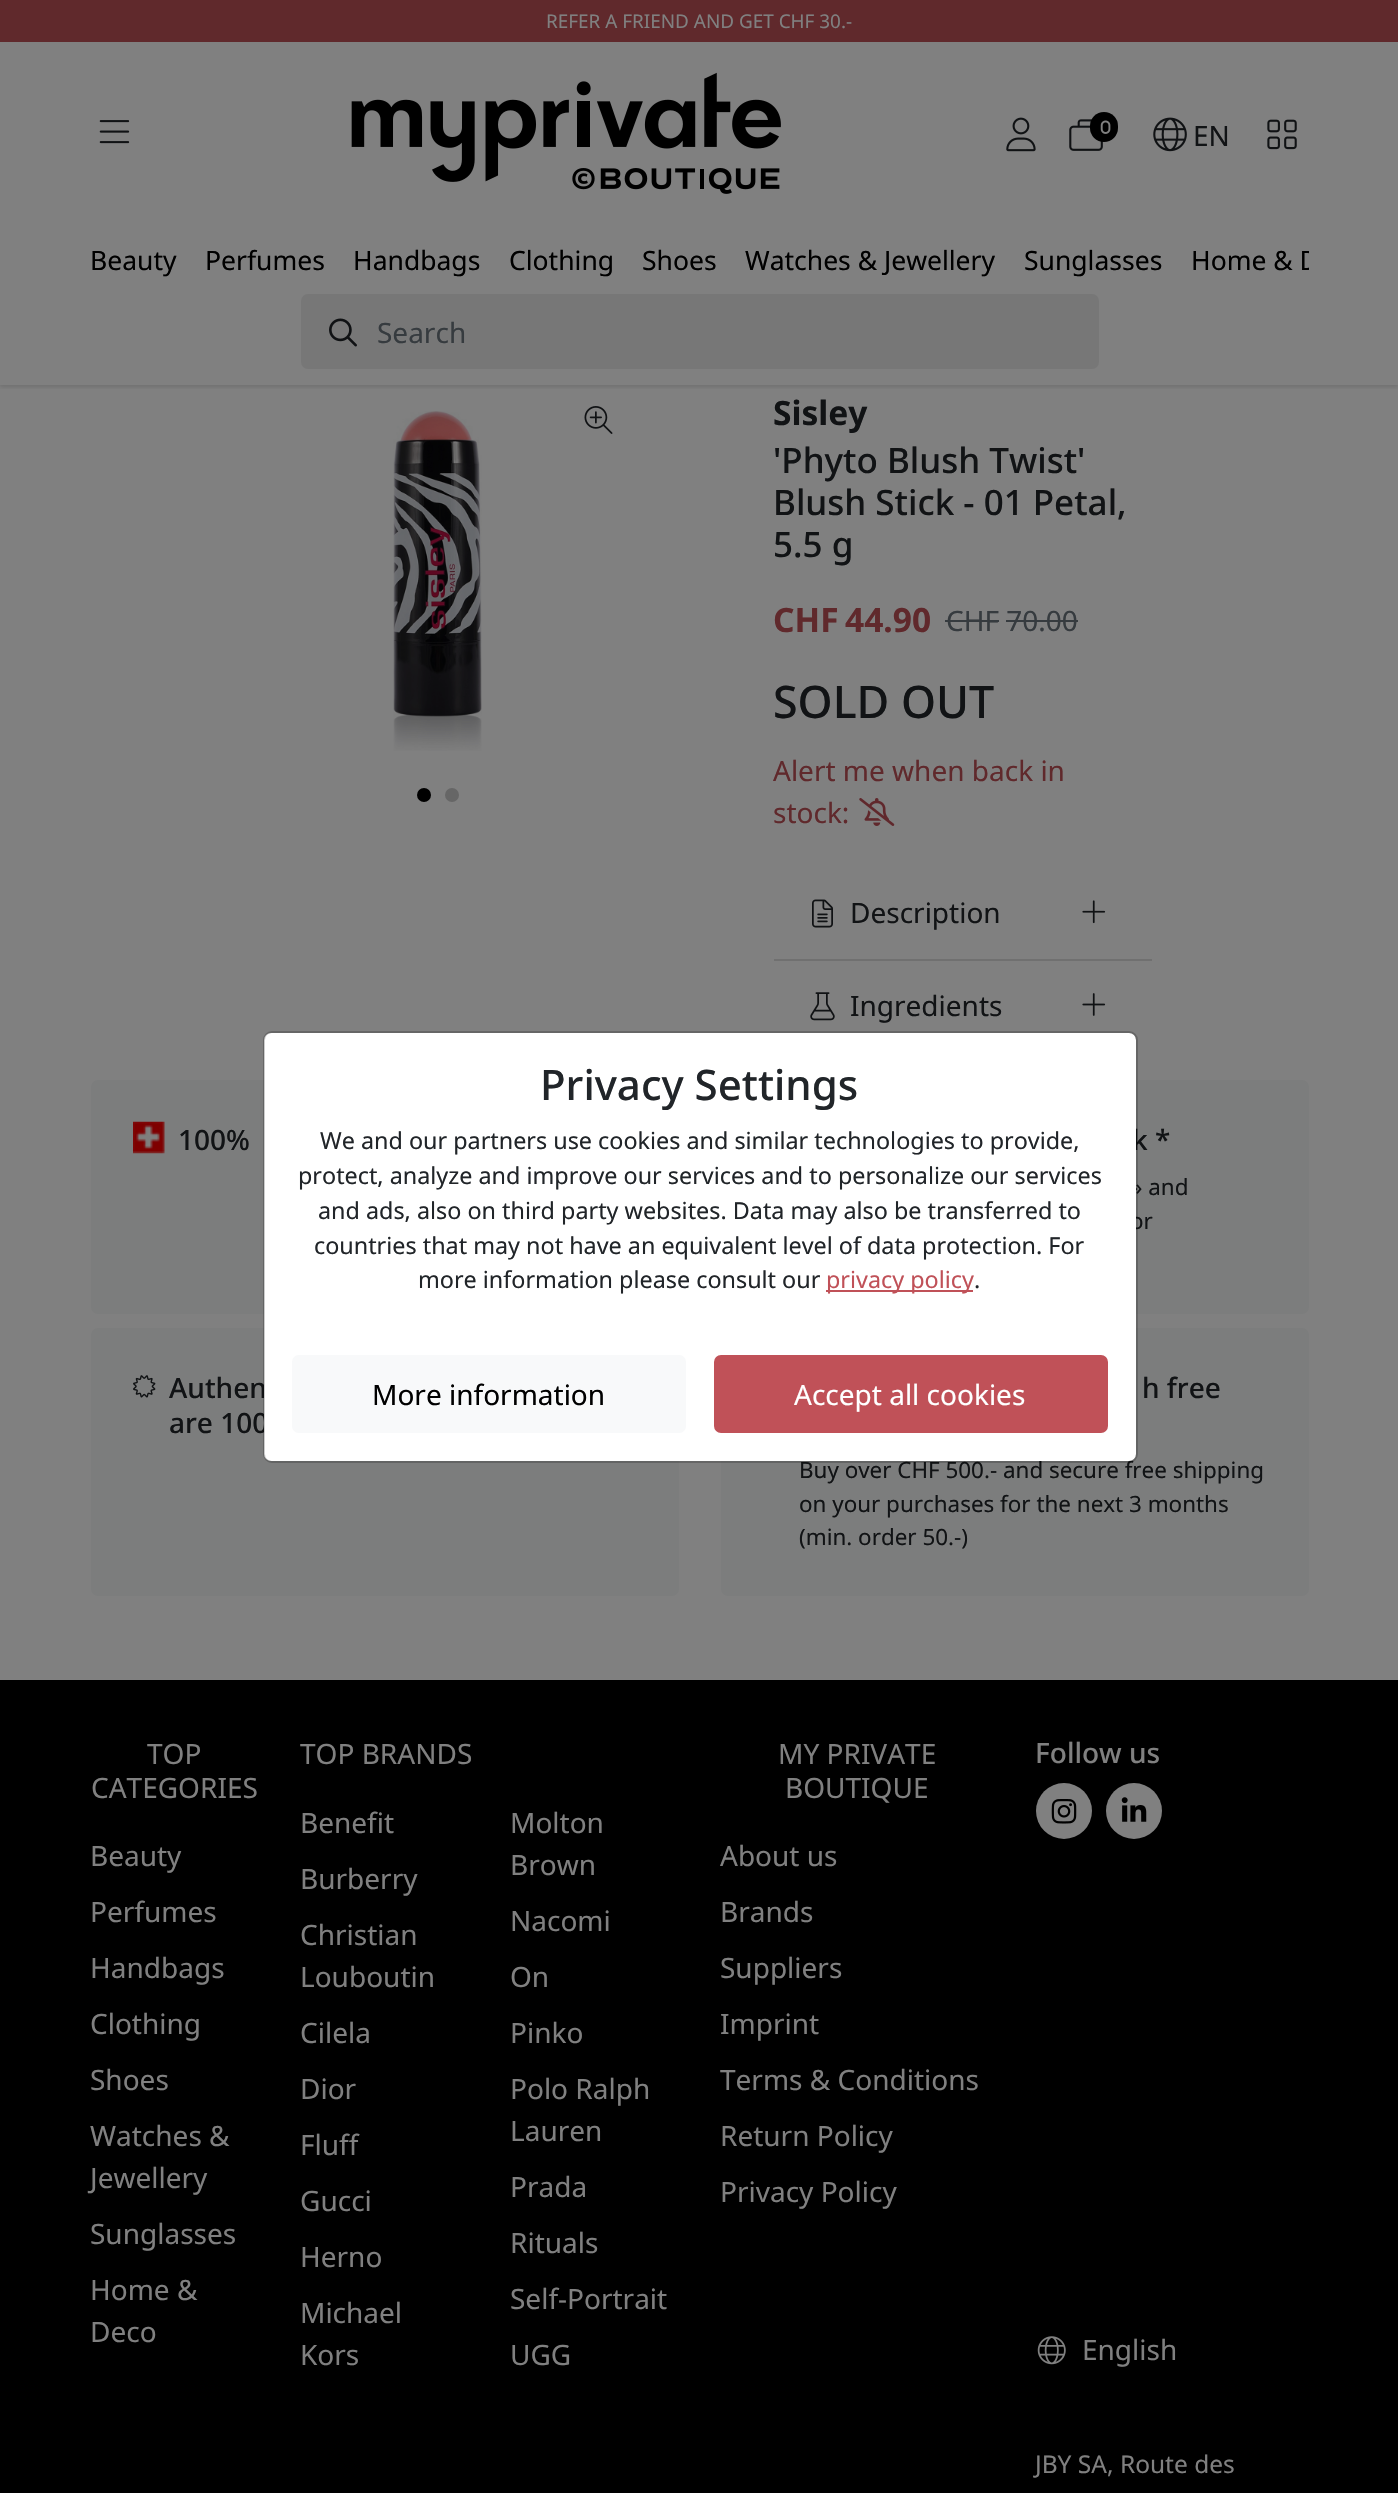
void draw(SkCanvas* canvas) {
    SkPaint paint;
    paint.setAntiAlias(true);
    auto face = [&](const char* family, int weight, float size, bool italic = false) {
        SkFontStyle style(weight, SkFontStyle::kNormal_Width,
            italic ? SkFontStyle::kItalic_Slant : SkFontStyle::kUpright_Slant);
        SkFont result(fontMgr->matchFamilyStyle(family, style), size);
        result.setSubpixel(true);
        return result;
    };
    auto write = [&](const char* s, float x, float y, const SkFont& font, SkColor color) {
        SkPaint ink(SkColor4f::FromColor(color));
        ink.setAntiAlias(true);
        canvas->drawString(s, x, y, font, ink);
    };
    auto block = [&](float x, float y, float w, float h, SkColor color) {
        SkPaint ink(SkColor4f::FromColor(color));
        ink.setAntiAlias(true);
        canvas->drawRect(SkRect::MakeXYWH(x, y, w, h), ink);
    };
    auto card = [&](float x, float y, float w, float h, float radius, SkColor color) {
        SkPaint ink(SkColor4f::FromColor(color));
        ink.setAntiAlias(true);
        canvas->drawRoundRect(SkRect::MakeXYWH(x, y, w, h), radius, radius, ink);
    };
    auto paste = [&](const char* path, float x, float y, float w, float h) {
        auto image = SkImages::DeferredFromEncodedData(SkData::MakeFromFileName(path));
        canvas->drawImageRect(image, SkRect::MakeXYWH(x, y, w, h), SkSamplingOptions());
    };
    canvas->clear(SkColorSetRGB(128, 128, 128));
    canvas->save();
    canvas->clipRect(SkRect::MakeXYWH(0, 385, 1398, 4));
    paint.setColor(SkColorSetARGB(31, 0, 0, 0));
    paint.setMaskFilter(SkMaskFilter::MakeBlur(kNormal_SkBlurStyle, 2));
    canvas->drawRect(SkRect::MakeXYWH(0, 2, 1398, 385), paint);
    paint.setMaskFilter(nullptr);
    canvas->restore();
    block(0, 0, 1398, 42, SkColorSetRGB(96, 41, 44));
    auto kFont1 = face("Noto Sans", 400, 18.9f);
    write("REFER A FRIEND AND GET CHF 30.-", 546, 28, kFont1, SkColorSetRGB(128, 128, 128));
    paste("pic1.png", 99, 120, 31, 24);
    paste("pic2.png", 351, 72, 430, 122);
    paste("pic3.png", 1006, 117, 30, 35);
    paste("pic4.png", 1069, 119, 34, 32);
    card(1090, 112, 28, 30, 14, SK_ColorBLACK);
    paste("pic5.png", 1100, 120, 11, 14);
    paste("pic6.png", 1153, 117, 34, 35);
    auto kFont2 = face("Noto Sans", 400, 28);
    write("EN", 1193, 146, kFont2, SkColorSetRGB(17, 19, 21));
    paste("pic7.png", 1267, 119, 30, 31);
    auto kFont3 = face("Noto Sans", 400, 26.5f);
    write("Beauty", 90, 270, kFont3, SK_ColorBLACK);
    write("Perfumes", 205, 270, kFont3, SK_ColorBLACK);
    write("Handbags", 353, 270, kFont3, SK_ColorBLACK);
    write("Clothing", 509, 270, kFont3, SK_ColorBLACK);
    write("Shoes", 642, 270, kFont3, SK_ColorBLACK);
    write("Watches & Jewellery", 745, 270, kFont3, SK_ColorBLACK);
    write("Sunglasses", 1024, 270, kFont3, SK_ColorBLACK);
    canvas->save();
    canvas->clipRect(SkRect::MakeXYWH(91, 228, 1218, 66));
    write("Home & D", 1191, 270, kFont3, SK_ColorBLACK);
    canvas->restore();
    card(301, 294, 798, 75, 7, SkColorSetRGB(119, 119, 119));
    paste("pic8.png", 329, 318, 28, 29);
    write("Search", 377, 343, kFont2, SkColorSetRGB(54, 59, 63));
    paste("pic9.png", 393, 411, 89, 340);
    paste("pic10.png", 584, 406, 29, 28);
    paint.setColor(SK_ColorBLACK);
    canvas->drawCircle(424, 795, 7, paint);
    paint.setColor(SkColorSetRGB(102, 102, 102));
    canvas->drawCircle(452, 795, 7, paint);
    auto kFont4 = face("Noto Sans", 700, 33.5f);
    write("Sisley", 773, 425, kFont4, SkColorSetRGB(17, 19, 21));
    auto kFont5 = face("Noto Sans", 500, 35);
    write("'Phyto Blush Twist'", 773, 473, kFont5, SkColorSetRGB(17, 19, 21));
    write("Blush Stick - 01 Petal,", 773, 515, kFont5, SkColorSetRGB(17, 19, 21));
    write("5.5 g", 773, 557, kFont5, SkColorSetRGB(17, 19, 21));
    write("CHF", 773, 632, kFont4, SkColorSetRGB(96, 41, 44));
    write("44.90", 845, 632, kFont4, SkColorSetRGB(96, 41, 44));
    write("CHF 70.00", 946, 631, kFont2, SkColorSetRGB(54, 59, 63));
    block(945, 620, 54, 2, SkColorSetRGB(54, 59, 63));
    block(1006, 620, 72, 2, SkColorSetRGB(54, 59, 63));
    auto kFont6 = face("Noto Sans", 500, 44.75f);
    write("SOLD OUT", 773, 718, kFont6, SkColorSetRGB(17, 19, 21));
    write("Alert me when back in", 773, 781, kFont2, SkColorSetRGB(96, 41, 44));
    write("stock:", 773, 823, kFont2, SkColorSetRGB(96, 41, 44));
    paste("pic11.png", 859, 798, 36, 28);
    block(774, 959, 378, 2, SkColorSetRGB(112, 112, 112));
    paste("pic12.png", 812, 899, 21, 29);
    write("Description", 850, 923, kFont2, SkColorSetRGB(17, 19, 21));
    paste("pic13.png", 1082, 900, 24, 24);
    paste("pic14.png", 810, 992, 25, 29);
    write("Ingredients", 850, 1016, kFont2, SkColorSetRGB(17, 19, 21));
    paste("pic15.png", 1082, 993, 24, 23);
    card(91, 1080, 588, 234, 7, SkColorSetRGB(124, 125, 125));
    paste("pic16.png", 133, 1121, 32, 33);
    auto kFont7 = face("Noto Sans", 500, 28);
    write("100%", 178, 1150, kFont7, SkColorSetRGB(17, 19, 21));
    card(721, 1080, 588, 234, 7, SkColorSetRGB(124, 125, 125));
    write("k *", 1132, 1150, kFont7, SkColorSetRGB(17, 19, 21));
    auto kFont8 = face("Noto Sans", 400, 22.4f);
    write("» and", 1131, 1195, kFont8, SkColorSetRGB(17, 19, 21));
    write("or", 1130, 1229, kFont8, SkColorSetRGB(17, 19, 21));
    card(91, 1328, 588, 268, 7, SkColorSetRGB(124, 125, 125));
    paste("pic17.png", 133, 1375, 23, 23);
    write("Authen", 169, 1398, kFont7, SkColorSetRGB(17, 19, 21));
    write("are 100", 169, 1433, kFont7, SkColorSetRGB(17, 19, 21));
    card(721, 1328, 588, 268, 7, SkColorSetRGB(124, 125, 125));
    write("h free", 1142, 1398, kFont7, SkColorSetRGB(17, 19, 21));
    write("Buy over CHF 500.- and secure free shipping", 799, 1478, kFont8, SkColorSetRGB(17, 19, 21));
    write("on your purchases for the next 3 months", 799, 1512, kFont8, SkColorSetRGB(17, 19, 21));
    write("(min. order 50.-)", 799, 1545, kFont8, SkColorSetRGB(17, 19, 21));
    card(264, 1033, 872, 428, 7, SK_ColorWHITE);
    paint.setStyle(SkPaint::kStroke_Style);
    paint.setStrokeWidth(2);
    paint.setColor(SkColorSetARGB(51, 0, 0, 0));
    canvas->drawRoundRect(SkRect::MakeXYWH(264, 1032, 873, 430), 8, 8, paint);
    auto kFont9 = face("Noto Sans", 500, 42);
    write("Privacy Settings", 540, 1100, kFont9, SkColorSetRGB(33, 37, 41));
    auto kFont10 = face("Noto Sans", 400, 23.35f);
    write("We and our partners use cookies and similar technologies to provide,", 320, 1149, kFont10, SkColorSetRGB(33, 37, 41));
    write("protect, analyze and improve our services and to personalize our services", 298, 1184, kFont10, SkColorSetRGB(33, 37, 41));
    write("and ads, also on third party websites. Data may also be transferred to", 318, 1219, kFont10, SkColorSetRGB(33, 37, 41));
    write("countries that may not have an equivalent level of data protection. For", 314, 1254, kFont10, SkColorSetRGB(33, 37, 41));
    write("more information please consult our", 418, 1288, kFont10, SkColorSetRGB(33, 37, 41));
    block(826, 1290, 147, 2, SkColorSetRGB(192, 81, 88));
    write("privacy policy", 826, 1288, kFont10, SkColorSetRGB(192, 81, 88));
    write(".", 974, 1288, kFont10, SkColorSetRGB(33, 37, 41));
    card(292, 1355, 394, 78, 7, SkColorSetRGB(248, 249, 250));
    write("More information", 372, 1405, kFont2, SK_ColorBLACK);
    paint.setStyle(SkPaint::kFill_Style);
    paint.setColor(SkColorSetRGB(192, 81, 88));
    canvas->drawRoundRect(SkRect::MakeXYWH(715, 1356, 392, 76), 6, 6, paint);
    paint.setStyle(SkPaint::kStroke_Style);
    canvas->drawRoundRect(SkRect::MakeXYWH(715, 1356, 392, 76), 6, 6, paint);
    write("Accept all cookies", 794, 1405, kFont2, SK_ColorWHITE);
    block(0, 1680, 1398, 813, SK_ColorBLACK);
    write("TOP", 147, 1764, kFont2, SkColorSetRGB(128, 128, 128));
    write("CATEGORIES", 91, 1798, kFont2, SkColorSetRGB(128, 128, 128));
    write("Beauty", 90, 1866, kFont2, SkColorSetRGB(128, 128, 128));
    write("Perfumes", 90, 1922, kFont2, SkColorSetRGB(128, 128, 128));
    write("Handbags", 90, 1978, kFont2, SkColorSetRGB(128, 128, 128));
    write("Clothing", 90, 2034, kFont2, SkColorSetRGB(128, 128, 128));
    write("Shoes", 90, 2090, kFont2, SkColorSetRGB(128, 128, 128));
    write("Watches &", 90, 2146, kFont2, SkColorSetRGB(128, 128, 128));
    write("Jewellery", 90, 2188, kFont2, SkColorSetRGB(128, 128, 128));
    write("Sunglasses", 90, 2244, kFont2, SkColorSetRGB(128, 128, 128));
    write("Home &", 90, 2300, kFont2, SkColorSetRGB(128, 128, 128));
    write("Deco", 90, 2342, kFont2, SkColorSetRGB(128, 128, 128));
    write("TOP BRANDS", 300, 1764, kFont2, SkColorSetRGB(128, 128, 128));
    write("Benefit", 300, 1833, kFont2, SkColorSetRGB(128, 128, 128));
    write("Burberry", 300, 1889, kFont2, SkColorSetRGB(128, 128, 128));
    write("Christian", 300, 1945, kFont2, SkColorSetRGB(128, 128, 128));
    write("Louboutin", 300, 1987, kFont2, SkColorSetRGB(128, 128, 128));
    write("Cilela", 300, 2043, kFont2, SkColorSetRGB(128, 128, 128));
    write("Dior", 300, 2099, kFont2, SkColorSetRGB(128, 128, 128));
    write("Fluff", 300, 2155, kFont2, SkColorSetRGB(128, 128, 128));
    write("Gucci", 300, 2211, kFont2, SkColorSetRGB(128, 128, 128));
    write("Herno", 300, 2267, kFont2, SkColorSetRGB(128, 128, 128));
    write("Michael", 300, 2323, kFont2, SkColorSetRGB(128, 128, 128));
    write("Kors", 300, 2365, kFont2, SkColorSetRGB(128, 128, 128));
    write("Molton", 510, 1833, kFont2, SkColorSetRGB(128, 128, 128));
    write("Brown", 510, 1875, kFont2, SkColorSetRGB(128, 128, 128));
    write("Nacomi", 510, 1931, kFont2, SkColorSetRGB(128, 128, 128));
    write("On", 510, 1987, kFont2, SkColorSetRGB(128, 128, 128));
    write("Pinko", 510, 2043, kFont2, SkColorSetRGB(128, 128, 128));
    write("Polo Ralph", 510, 2099, kFont2, SkColorSetRGB(128, 128, 128));
    write("Lauren", 510, 2141, kFont2, SkColorSetRGB(128, 128, 128));
    write("Prada", 510, 2197, kFont2, SkColorSetRGB(128, 128, 128));
    write("Rituals", 510, 2253, kFont2, SkColorSetRGB(128, 128, 128));
    write("Self-Portrait", 510, 2309, kFont2, SkColorSetRGB(128, 128, 128));
    write("UGG", 510, 2365, kFont2, SkColorSetRGB(128, 128, 128));
    write("MY PRIVATE", 778, 1764, kFont2, SkColorSetRGB(128, 128, 128));
    write("BOUTIQUE", 785, 1798, kFont2, SkColorSetRGB(128, 128, 128));
    write("About us", 720, 1866, kFont2, SkColorSetRGB(128, 128, 128));
    write("Brands", 720, 1922, kFont2, SkColorSetRGB(128, 128, 128));
    write("Suppliers", 720, 1978, kFont2, SkColorSetRGB(128, 128, 128));
    write("Imprint", 720, 2034, kFont2, SkColorSetRGB(128, 128, 128));
    write("Terms & Conditions", 720, 2090, kFont2, SkColorSetRGB(128, 128, 128));
    write("Return Policy", 720, 2146, kFont2, SkColorSetRGB(128, 128, 128));
    write("Privacy Policy", 720, 2202, kFont2, SkColorSetRGB(128, 128, 128));
    write("Follow us", 1035, 1763, kFont7, SkColorSetRGB(128, 128, 128));
    paint.setStyle(SkPaint::kFill_Style);
    paint.setColor(SkColorSetRGB(128, 128, 128));
    canvas->drawCircle(1064, 1811, 28, paint);
    paste("pic18.png", 1051, 1799, 26, 25);
    canvas->drawCircle(1134, 1811, 28, paint);
    paste("pic19.png", 1121, 1797, 26, 25);
    paste("pic20.png", 1037, 2336, 29, 29);
    write("English", 1082, 2360, kFont2, SkColorSetRGB(128, 128, 128));
    auto kFont11 = face("Noto Sans", 400, 24.5f);
    write("JBY SA, Route des", 1035, 2473, kFont11, SkColorSetRGB(128, 128, 128));
}
